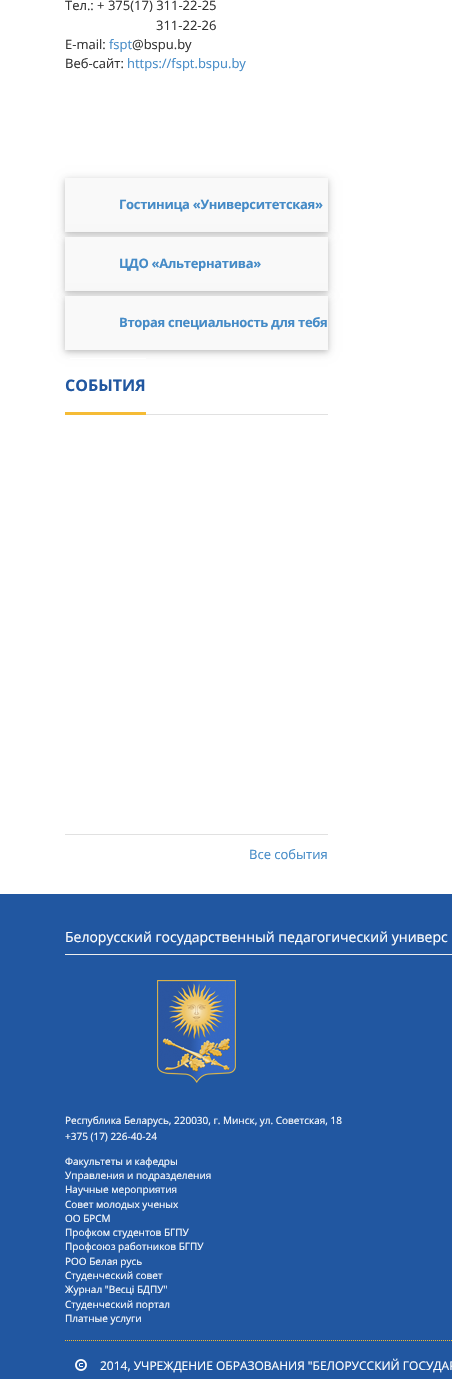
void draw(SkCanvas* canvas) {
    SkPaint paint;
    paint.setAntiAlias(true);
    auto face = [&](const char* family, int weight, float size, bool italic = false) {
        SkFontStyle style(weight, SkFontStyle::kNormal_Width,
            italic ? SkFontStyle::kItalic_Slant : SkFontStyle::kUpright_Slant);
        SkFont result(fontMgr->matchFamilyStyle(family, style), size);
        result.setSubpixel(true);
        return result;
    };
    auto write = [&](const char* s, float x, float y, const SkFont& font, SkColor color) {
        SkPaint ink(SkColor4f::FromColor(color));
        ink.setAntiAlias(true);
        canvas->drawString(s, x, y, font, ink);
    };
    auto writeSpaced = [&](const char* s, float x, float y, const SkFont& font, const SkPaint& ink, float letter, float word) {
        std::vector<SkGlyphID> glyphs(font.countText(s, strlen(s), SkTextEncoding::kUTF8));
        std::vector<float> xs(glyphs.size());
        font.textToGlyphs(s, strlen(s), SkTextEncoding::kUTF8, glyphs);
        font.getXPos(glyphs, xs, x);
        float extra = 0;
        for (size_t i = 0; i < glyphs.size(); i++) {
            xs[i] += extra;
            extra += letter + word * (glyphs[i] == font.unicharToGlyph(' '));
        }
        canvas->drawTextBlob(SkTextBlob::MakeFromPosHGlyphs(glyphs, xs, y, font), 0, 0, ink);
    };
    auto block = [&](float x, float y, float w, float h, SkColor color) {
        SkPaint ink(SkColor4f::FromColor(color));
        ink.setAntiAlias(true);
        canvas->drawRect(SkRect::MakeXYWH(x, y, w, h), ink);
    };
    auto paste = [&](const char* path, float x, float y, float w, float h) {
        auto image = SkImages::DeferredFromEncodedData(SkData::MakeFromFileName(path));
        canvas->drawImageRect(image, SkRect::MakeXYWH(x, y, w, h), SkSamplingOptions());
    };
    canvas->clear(SK_ColorWHITE);
    auto kFont1 = face("Open Sans", 400, 13);
    write("Тел.: + 375(17) 311-22-25", 65, 10, kFont1, SkColorSetRGB(51, 51, 51));
    write("311-22-26", 156, 30, kFont1, SkColorSetRGB(51, 51, 51));
    write("E-mail:", 65, 49, kFont1, SkColorSetRGB(51, 51, 51));
    write("fspt", 109, 49, kFont1, SkColorSetRGB(69, 139, 199));
    write("@bspu.by", 132, 49, kFont1, SkColorSetRGB(51, 51, 51));
    write("Веб-сайт:", 65, 68, kFont1, SkColorSetRGB(51, 51, 51));
    write("https://fspt.bspu.by", 127, 68, kFont1, SkColorSetRGB(69, 139, 199));
    paint.setColor(SkColorSetARGB(31, 0, 0, 0));
    paint.setMaskFilter(SkMaskFilter::MakeBlur(kNormal_SkBlurStyle, 5));
    canvas->drawRect(SkRect::MakeXYWH(65, 180, 263, 54), paint);
    paint.setMaskFilter(nullptr);
    paint.setColor(SkColorSetARGB(41, 0, 0, 0));
    paint.setMaskFilter(SkMaskFilter::MakeBlur(kNormal_SkBlurStyle, 2.5f));
    canvas->drawRect(SkRect::MakeXYWH(65, 180, 263, 54), paint);
    paint.setMaskFilter(nullptr);
    block(65, 178, 263, 54, SkColorSetRGB(249, 249, 249));
    auto kFont2 = face("Open Sans", 700, 13);
    paint.setColor(SkColorSetRGB(69, 139, 199));
    writeSpaced("Гостиница «Университетская»", 119, 209, kFont2, paint, -0.3f, 0);
    paint.setColor(SkColorSetARGB(31, 0, 0, 0));
    paint.setMaskFilter(SkMaskFilter::MakeBlur(kNormal_SkBlurStyle, 5));
    canvas->drawRect(SkRect::MakeXYWH(65, 239, 263, 54), paint);
    paint.setMaskFilter(nullptr);
    paint.setColor(SkColorSetARGB(41, 0, 0, 0));
    paint.setMaskFilter(SkMaskFilter::MakeBlur(kNormal_SkBlurStyle, 2.5f));
    canvas->drawRect(SkRect::MakeXYWH(65, 239, 263, 54), paint);
    paint.setMaskFilter(nullptr);
    block(65, 237, 263, 54, SkColorSetRGB(249, 249, 249));
    paint.setColor(SkColorSetRGB(69, 139, 199));
    writeSpaced("ЦДО «Альтернатива»", 119, 268, kFont2, paint, -0.3f, 0);
    paint.setColor(SkColorSetARGB(31, 0, 0, 0));
    paint.setMaskFilter(SkMaskFilter::MakeBlur(kNormal_SkBlurStyle, 5));
    canvas->drawRect(SkRect::MakeXYWH(65, 298, 263, 54), paint);
    paint.setMaskFilter(nullptr);
    paint.setColor(SkColorSetARGB(41, 0, 0, 0));
    paint.setMaskFilter(SkMaskFilter::MakeBlur(kNormal_SkBlurStyle, 2.5f));
    canvas->drawRect(SkRect::MakeXYWH(65, 298, 263, 54), paint);
    paint.setMaskFilter(nullptr);
    block(65, 296, 263, 54, SkColorSetRGB(249, 249, 249));
    paint.setColor(SkColorSetRGB(69, 139, 199));
    writeSpaced("Вторая специальность для тебя", 119, 327, kFont2, paint, -0.3f, 0);
    block(146, 414, 182, 1, SkColorSetRGB(225, 225, 225));
    auto kFont3 = face("Open Sans", 700, 16);
    write("СОБЫТИЯ", 65, 391, kFont3, SkColorSetRGB(33, 87, 160));
    block(70, 358, 76, 1, SK_ColorWHITE);
    block(65, 412, 81, 3, SkColorSetRGB(245, 187, 53));
    block(65, 834, 263, 1, SkColorSetRGB(225, 225, 225));
    write("Все события", 249, 859, kFont1, SkColorSetRGB(69, 139, 199));
    block(0, 894, 452, 485, SkColorSetRGB(33, 87, 161));
    block(65, 954, 387, 1, SkColorSetRGB(238, 238, 238));
    auto kFont4 = face("Open Sans", 400, 14);
    write("Белорусский государственный педагогический универс", 65, 942, kFont4, SK_ColorWHITE);
    paste("pic1.png", 157, 980, 79, 103);
    auto kFont5 = face("Open Sans", 400, 10);
    write("Республика Беларусь, 220030, г. Минск, ул. Советская, 18", 65, 1124, kFont5, SK_ColorWHITE);
    write("+375 (17) 226-40-24", 65, 1140, kFont5, SK_ColorWHITE);
    write("Факультеты и кафедры", 65, 1165, kFont5, SK_ColorWHITE);
    write("Управления и подразделения", 65, 1179, kFont5, SK_ColorWHITE);
    write("Научные мероприятия", 65, 1193, kFont5, SK_ColorWHITE);
    write("Совет молодых ученых", 65, 1208, kFont5, SK_ColorWHITE);
    write("ОО БРСМ", 65, 1222, kFont5, SK_ColorWHITE);
    write("Профком студентов БГПУ", 65, 1236, kFont5, SK_ColorWHITE);
    write("Профсоюз работников БГПУ", 65, 1250, kFont5, SK_ColorWHITE);
    write("РОО Белая русь", 65, 1265, kFont5, SK_ColorWHITE);
    write("Студенческий совет", 65, 1279, kFont5, SK_ColorWHITE);
    write("Журнал \"Весцi БДПУ\"", 65, 1293, kFont5, SK_ColorWHITE);
    write("Студенческий портал", 65, 1308, kFont5, SK_ColorWHITE);
    write("Платные услуги", 65, 1322, kFont5, SK_ColorWHITE);
    paint.setStyle(SkPaint::kStroke_Style);
    paint.setStrokeWidth(1);
    paint.setColor(SkColorSetRGB(244, 188, 51));
    paint.setPathEffect(SkDashPathEffect::Make({{1, 1}}, 0));
    canvas->drawPath(SkPathBuilder().moveTo(65, 1340.5f).lineTo(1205, 1340.5f).detach(), paint);
    paint.setPathEffect(nullptr);
    paste("pic2.png", 75, 1359, 12, 12);
    auto kFont6 = face("Open Sans", 400, 12);
    write("2014, УЧРЕЖДЕНИЕ ОБРАЗОВАНИЯ \"БЕЛОРУССКИЙ ГОСУДАР", 100, 1370, kFont6, SK_ColorWHITE);
}
